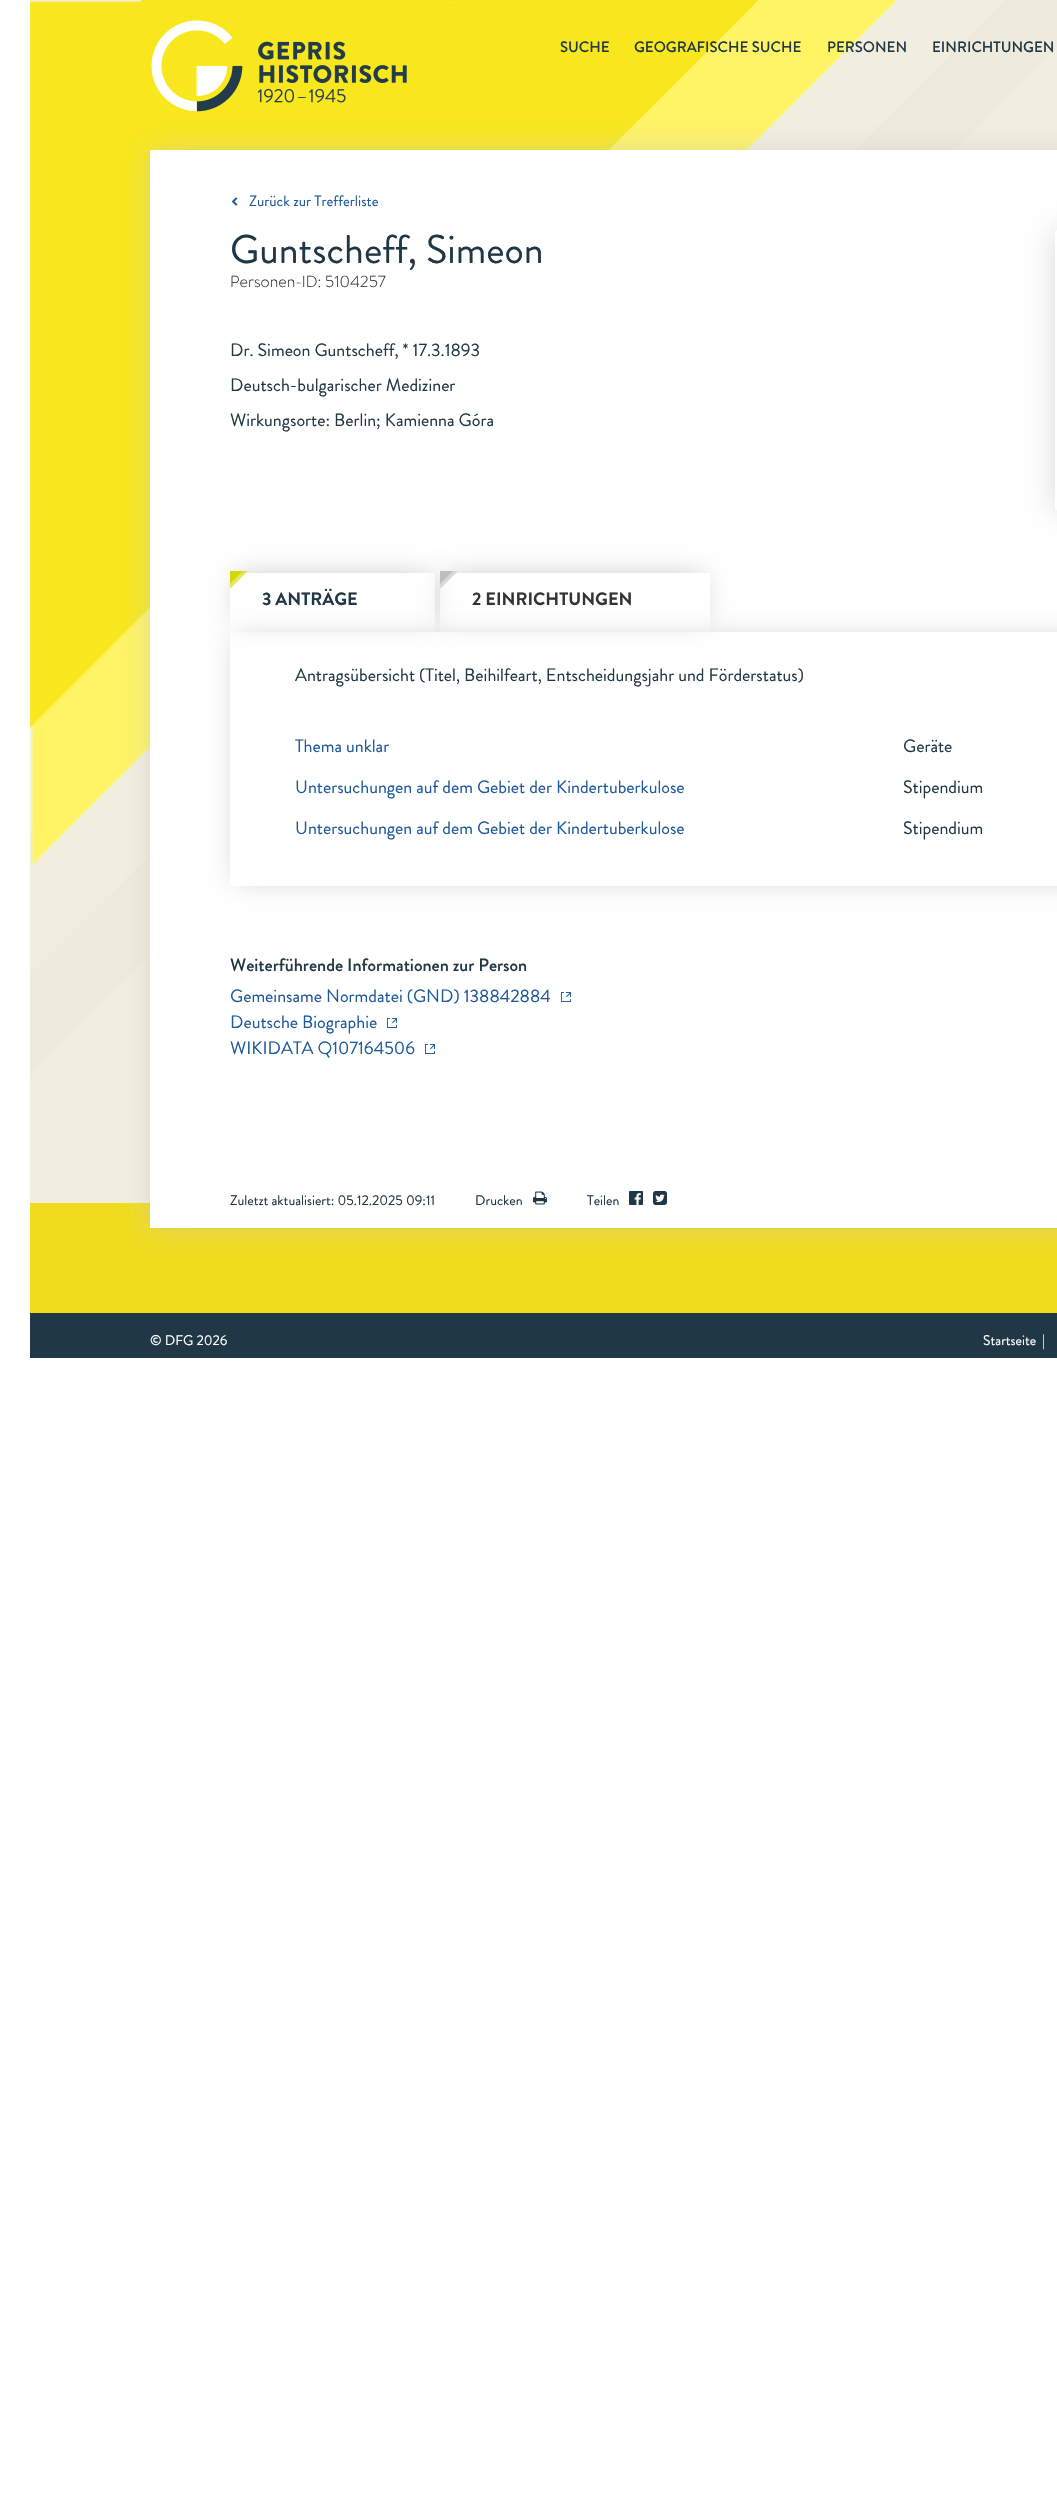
void draw(SkCanvas* canvas) {
    SkPaint paint;
    paint.setAntiAlias(true);
    auto face = [&](const char* family, int weight, float size, bool italic = false) {
        SkFontStyle style(weight, SkFontStyle::kNormal_Width,
            italic ? SkFontStyle::kItalic_Slant : SkFontStyle::kUpright_Slant);
        SkFont result(fontMgr->matchFamilyStyle(family, style), size);
        result.setSubpixel(true);
        return result;
    };
    auto write = [&](const char* s, float x, float y, const SkFont& font, SkColor color) {
        SkPaint ink(SkColor4f::FromColor(color));
        ink.setAntiAlias(true);
        canvas->drawString(s, x, y, font, ink);
    };
    auto block = [&](float x, float y, float w, float h, SkColor color) {
        SkPaint ink(SkColor4f::FromColor(color));
        ink.setAntiAlias(true);
        canvas->drawRect(SkRect::MakeXYWH(x, y, w, h), ink);
    };
    auto paste = [&](const char* path, float x, float y, float w, float h) {
        auto image = SkImages::DeferredFromEncodedData(SkData::MakeFromFileName(path));
        canvas->drawImageRect(image, SkRect::MakeXYWH(x, y, w, h), SkSamplingOptions());
    };
    canvas->clear(SK_ColorWHITE);
    block(30, 0, 1027, 1203, SkColorSetRGB(244, 241, 230));
    paste("pic1.png", 30, 0, 1027, 1203);
    paste("pic2.png", 151, 20, 256, 92);
    auto kFont1 = face("Brandon Grotesque", 500, 15);
    write("SUCHE", 560, 52, kFont1, SkColorSetRGB(32, 55, 69));
    write("GEOGRAFISCHE SUCHE", 634, 52, kFont1, SkColorSetRGB(32, 55, 69));
    write("PERSONEN", 827, 52, kFont1, SkColorSetRGB(32, 55, 69));
    write("EINRICHTUNGEN", 932, 52, kFont1, SkColorSetRGB(32, 55, 69));
    block(30, 1203, 1027, 110, SkColorSetRGB(240, 220, 28));
    paint.setColor(SkColorSetARGB(128, 197, 197, 197));
    paint.setMaskFilter(SkMaskFilter::MakeBlur(kNormal_SkBlurStyle, 14));
    canvas->drawRect(SkRect::MakeXYWH(150, 150, 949, 1078), paint);
    paint.setMaskFilter(nullptr);
    block(150, 150, 907, 1078, SK_ColorWHITE);
    paste("pic3.png", 231, 197, 7, 9);
    auto kFont2 = face("Brandon Grotesque", 400, 15);
    write("Zurück zur Trefferliste", 249, 206, kFont2, SkColorSetRGB(30, 89, 155));
    auto kFont3 = face("Brandon Grotesque", 400, 40);
    write("Guntscheff, Simeon", 230, 263, kFont3, SkColorSetRGB(32, 55, 69));
    canvas->save();
    canvas->clipPath(SkPathBuilder(SkPathFillType::kEvenOdd).moveTo(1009, 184).lineTo(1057, 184).lineTo(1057, 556).lineTo(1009, 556).close().moveTo(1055, 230).lineTo(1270, 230).lineTo(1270, 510).lineTo(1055, 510).close().detach(), true);
    paint.setColor(SkColorSetARGB(38, 0, 0, 0));
    paint.setMaskFilter(SkMaskFilter::MakeBlur(kNormal_SkBlurStyle, 15));
    canvas->drawRect(SkRect::MakeXYWH(1055, 230, 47, 280), paint);
    paint.setMaskFilter(nullptr);
    canvas->restore();
    auto kFont4 = face("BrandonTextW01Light", 300, 16);
    write("Personen-ID: 5104257", 230, 287, kFont4, SkColorSetRGB(51, 51, 51));
    auto kFont5 = face("Brandon Grotesque", 400, 18);
    write("Dr. Simeon Guntscheff, * 17.3.1893", 230, 356, kFont5, SkColorSetRGB(32, 55, 69));
    write("Deutsch-bulgarischer Mediziner", 230, 391, kFont5, SkColorSetRGB(32, 55, 69));
    write("Wirkungsorte: Berlin; Kamienna Góra", 230, 426, kFont5, SkColorSetRGB(32, 55, 69));
    canvas->save();
    canvas->clipPath(SkPathBuilder(SkPathFillType::kEvenOdd).moveTo(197, 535).lineTo(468, 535).lineTo(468, 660).lineTo(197, 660).close().moveTo(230, 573).lineTo(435, 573).lineTo(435, 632).lineTo(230, 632).close().detach(), true);
    paint.setColor(SkColorSetARGB(54, 0, 0, 0));
    paint.setMaskFilter(SkMaskFilter::MakeBlur(kNormal_SkBlurStyle, 13));
    canvas->drawRect(SkRect::MakeXYWH(237, 575, 191, 45), paint);
    paint.setMaskFilter(nullptr);
    canvas->restore();
    paste("pic4.png", 230, 571, 17, 17);
    canvas->save();
    canvas->clipPath(SkPathBuilder(SkPathFillType::kEvenOdd).moveTo(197, 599).lineTo(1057, 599).lineTo(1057, 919).lineTo(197, 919).close().moveTo(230, 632).lineTo(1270, 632).lineTo(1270, 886).lineTo(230, 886).close().detach(), true);
    paint.setMaskFilter(SkMaskFilter::MakeBlur(kNormal_SkBlurStyle, 13));
    canvas->drawRect(SkRect::MakeXYWH(237, 639, 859, 240), paint);
    paint.setMaskFilter(nullptr);
    canvas->restore();
    auto kFont6 = face("Brandon Grotesque", 700, 18);
    write("3 ANTRÄGE", 262, 605, kFont6, SkColorSetRGB(32, 55, 69));
    canvas->save();
    canvas->clipPath(SkPathBuilder(SkPathFillType::kEvenOdd).moveTo(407, 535).lineTo(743, 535).lineTo(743, 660).lineTo(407, 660).close().moveTo(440, 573).lineTo(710, 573).lineTo(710, 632).lineTo(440, 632).close().detach(), true);
    paint.setMaskFilter(SkMaskFilter::MakeBlur(kNormal_SkBlurStyle, 13));
    canvas->drawRect(SkRect::MakeXYWH(447, 575, 256, 45), paint);
    paint.setMaskFilter(nullptr);
    canvas->restore();
    paste("pic5.png", 440, 571, 17, 17);
    write("2 EINRICHTUNGEN", 472, 605, kFont6, SkColorSetRGB(51, 51, 51));
    write("Antragsübersicht (Titel, Beihilfeart, Entscheidungsjahr und Förderstatus)", 295, 681, kFont5, SkColorSetRGB(32, 55, 69));
    write("Thema unklar", 295, 752, kFont5, SkColorSetRGB(30, 89, 155));
    write("Geräte", 903, 752, kFont5, SkColorSetRGB(32, 55, 69));
    write("Untersuchungen auf dem Gebiet der Kindertuberkulose", 295, 793, kFont5, SkColorSetRGB(30, 89, 155));
    write("Stipendium", 903, 793, kFont5, SkColorSetRGB(32, 55, 69));
    write("Untersuchungen auf dem Gebiet der Kindertuberkulose", 295, 834, kFont5, SkColorSetRGB(30, 89, 155));
    write("Stipendium", 903, 834, kFont5, SkColorSetRGB(32, 55, 69));
    auto kFont7 = face("Brandon Grotesque", 500, 18);
    write("Weiterführende Informationen zur Person", 230, 971, kFont7, SkColorSetRGB(32, 55, 69));
    write("Gemeinsame Normdatei (GND) 138842884", 230, 1002, kFont5, SkColorSetRGB(30, 89, 155));
    paste("pic6.png", 561, 992, 10, 10);
    write("Deutsche Biographie", 230, 1028, kFont5, SkColorSetRGB(30, 89, 155));
    paste("pic6.png", 387, 1018, 10, 10);
    write("WIKIDATA Q107164506", 230, 1054, kFont5, SkColorSetRGB(30, 89, 155));
    paste("pic6.png", 425, 1044, 10, 10);
    auto kFont8 = face("Brandon Grotesque", 400, 14);
    write("Zuletzt aktualisiert: 05.12.2025 09:11", 230, 1205, kFont8, SkColorSetRGB(32, 55, 69));
    write("Drucken", 475, 1205, kFont8, SkColorSetRGB(32, 55, 69));
    paste("pic7.png", 533, 1191, 14, 14);
    write("Teilen", 587, 1205, kFont8, SkColorSetRGB(32, 55, 69));
    paste("pic8.png", 629, 1191, 14, 14);
    paste("pic9.png", 653, 1191, 14, 14);
    block(30, 1313, 1027, 45, SkColorSetRGB(32, 55, 69));
    write("© DFG 2026", 150, 1345, kFont8, SK_ColorWHITE);
    write("Startseite", 983, 1345, kFont8, SK_ColorWHITE);
    write("|", 1042, 1345, kFont8, SK_ColorWHITE);
}
